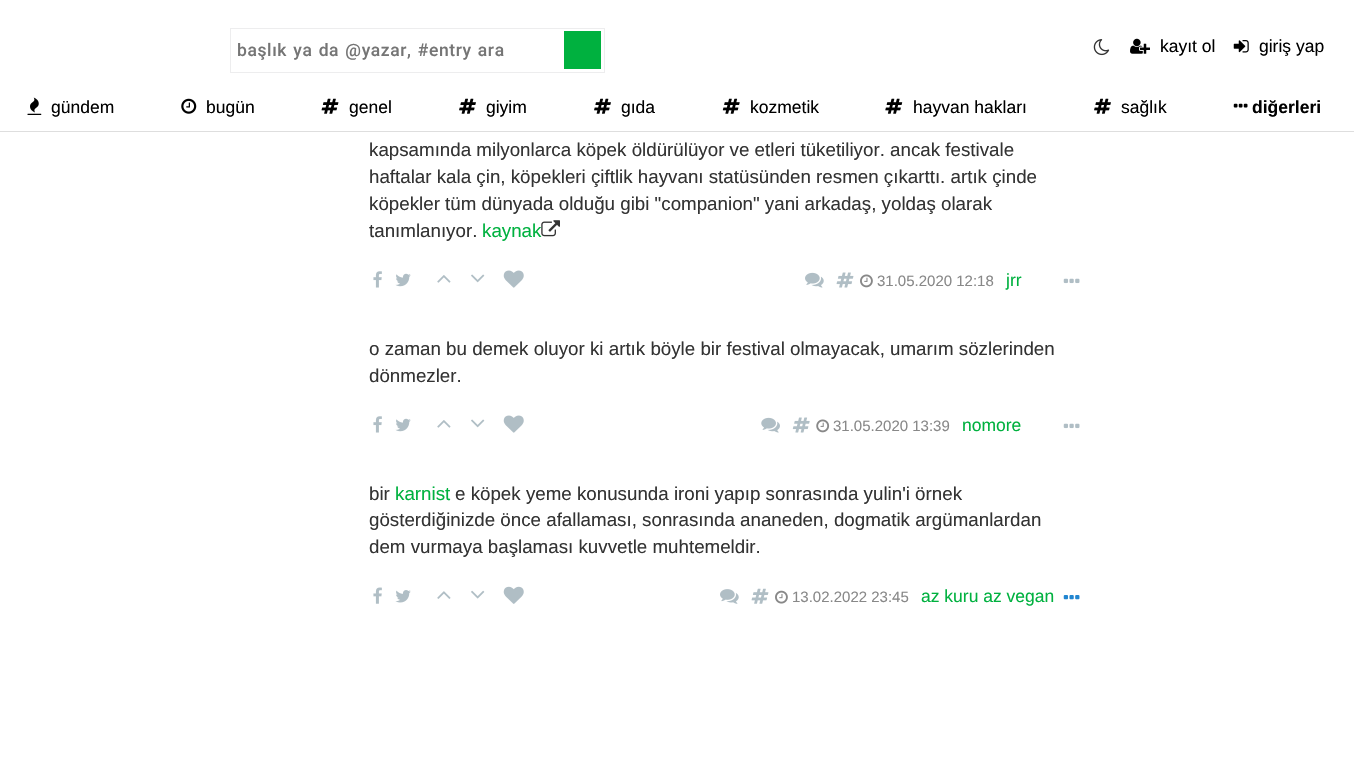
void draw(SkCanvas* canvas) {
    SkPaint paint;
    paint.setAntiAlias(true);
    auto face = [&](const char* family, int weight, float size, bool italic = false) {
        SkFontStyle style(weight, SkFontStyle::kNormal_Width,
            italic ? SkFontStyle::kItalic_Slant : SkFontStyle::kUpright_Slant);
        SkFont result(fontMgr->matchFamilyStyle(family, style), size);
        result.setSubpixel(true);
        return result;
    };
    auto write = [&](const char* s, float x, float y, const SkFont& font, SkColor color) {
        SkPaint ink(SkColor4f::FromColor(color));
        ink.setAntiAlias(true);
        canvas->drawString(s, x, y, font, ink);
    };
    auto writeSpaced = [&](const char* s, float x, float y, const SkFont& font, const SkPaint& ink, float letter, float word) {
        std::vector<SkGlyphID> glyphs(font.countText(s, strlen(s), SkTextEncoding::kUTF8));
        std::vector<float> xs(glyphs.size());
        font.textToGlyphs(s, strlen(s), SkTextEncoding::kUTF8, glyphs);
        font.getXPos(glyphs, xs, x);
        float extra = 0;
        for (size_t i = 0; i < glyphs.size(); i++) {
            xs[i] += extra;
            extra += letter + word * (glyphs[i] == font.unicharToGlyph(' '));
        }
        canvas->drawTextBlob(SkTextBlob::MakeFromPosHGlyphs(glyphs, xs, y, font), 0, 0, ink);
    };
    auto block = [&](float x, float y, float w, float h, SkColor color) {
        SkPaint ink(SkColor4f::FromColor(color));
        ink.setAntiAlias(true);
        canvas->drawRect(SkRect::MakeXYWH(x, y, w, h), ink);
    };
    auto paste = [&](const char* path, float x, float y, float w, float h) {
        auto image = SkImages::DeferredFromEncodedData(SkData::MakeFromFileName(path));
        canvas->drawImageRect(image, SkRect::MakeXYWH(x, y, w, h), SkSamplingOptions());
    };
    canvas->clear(SK_ColorWHITE);
    block(0, 131, 1354, 1, SkColorSetRGB(222, 222, 222));
    paint.setStyle(SkPaint::kStroke_Style);
    paint.setStrokeWidth(1);
    paint.setColor(SkColorSetRGB(237, 237, 238));
    canvas->drawRect(SkRect::MakeXYWH(230.5f, 28.5f, 374, 44), paint);
    auto kFont1 = face("Roboto", 500, 17.5f);
    paint.setStyle(SkPaint::kFill_Style);
    paint.setColor(SkColorSetRGB(117, 117, 117));
    writeSpaced("başlık ya da @yazar, #entry ara", 237, 56, kFont1, paint, 0.6f, 1.25f);
    block(564, 31, 37, 38, SkColorSetRGB(0, 177, 63));
    paste("pic1.png", 1093, 39, 17, 17);
    paste("pic2.png", 1130, 38, 20, 16);
    auto kFont2 = face("Liberation Sans", 400, 17.5f);
    write("kayıt ol", 1160, 52, kFont2, SK_ColorBLACK);
    paste("pic3.png", 1233, 40, 16, 13);
    write("giriş yap", 1259, 52, kFont2, SK_ColorBLACK);
    paste("pic4.png", 27, 97, 15, 18);
    write("gündem", 51, 113, kFont2, SK_ColorBLACK);
    paste("pic5.png", 181, 98, 16, 16);
    write("bugün", 206, 113, kFont2, SK_ColorBLACK);
    paste("pic6.png", 321, 98, 18, 16);
    write("genel", 349, 113, kFont2, SK_ColorBLACK);
    paste("pic7.png", 459, 98, 17, 16);
    write("giyim", 486, 113, kFont2, SK_ColorBLACK);
    paste("pic7.png", 594, 98, 17, 16);
    write("gıda", 621, 113, kFont2, SK_ColorBLACK);
    paste("pic8.png", 722, 98, 18, 16);
    write("kozmetik", 750, 113, kFont2, SK_ColorBLACK);
    paste("pic9.png", 885, 98, 18, 16);
    write("hayvan hakları", 913, 113, kFont2, SK_ColorBLACK);
    paste("pic7.png", 1094, 98, 17, 16);
    write("sağlık", 1121, 113, kFont2, SK_ColorBLACK);
    paste("pic10.png", 1233, 103, 15, 5);
    auto kFont3 = face("Liberation Sans", 700, 17.5f);
    write("diğerleri", 1252, 113, kFont3, SK_ColorBLACK);
    auto kFont4 = face("Liberation Sans", 400, 18.75f);
    write("kapsamında milyonlarca köpek öldürülüyor ve etleri tüketiliyor. ancak festivale", 369, 156, kFont4, SkColorSetRGB(51, 51, 51));
    write("haftalar kala çin, köpekleri çiftlik hayvanı statüsünden resmen çıkarttı. artık çinde", 369, 183, kFont4, SkColorSetRGB(51, 51, 51));
    write("köpekler tüm dünyada olduğu gibi \"companion\" yani arkadaş, yoldaş olarak", 369, 210, kFont4, SkColorSetRGB(51, 51, 51));
    write("tanımlanıyor.", 369, 237, kFont4, SkColorSetRGB(51, 51, 51));
    write("kaynak", 482, 237, kFont4, SkColorSetRGB(0, 177, 63));
    paste("pic11.png", 541, 220, 19, 17);
    paste("pic12.png", 373, 271, 9, 17);
    paste("pic13.png", 395, 273, 16, 14);
    paste("pic14.png", 437, 275, 14, 8);
    paste("pic15.png", 471, 274, 14, 9);
    paste("pic16.png", 503, 270, 21, 18);
    paste("pic17.png", 805, 272, 19, 16);
    paste("pic18.png", 836, 272, 18, 16);
    paste("pic19.png", 860, 274, 13, 14);
    auto kFont5 = face("Liberation Sans", 400, 15);
    write("31.05.2020 12:18", 877, 286, kFont5, SkColorSetRGB(136, 136, 136));
    write("jrr", 1006, 286, kFont2, SkColorSetRGB(0, 177, 63));
    paste("pic20.png", 1063, 278, 17, 6);
    write("o zaman bu demek oluyor ki artık böyle bir festival olmayacak, umarım sözlerinden", 369, 355, kFont4, SkColorSetRGB(51, 51, 51));
    write("dönmezler.", 369, 382, kFont4, SkColorSetRGB(51, 51, 51));
    paste("pic12.png", 373, 416, 9, 17);
    paste("pic13.png", 395, 418, 16, 14);
    paste("pic14.png", 437, 420, 14, 8);
    paste("pic15.png", 471, 419, 14, 9);
    paste("pic16.png", 503, 415, 21, 18);
    paste("pic21.png", 761, 417, 19, 16);
    paste("pic22.png", 792, 417, 18, 16);
    paste("pic23.png", 816, 419, 14, 14);
    write("31.05.2020 13:39", 833, 431, kFont5, SkColorSetRGB(136, 136, 136));
    write("nomore", 962, 431, kFont2, SkColorSetRGB(0, 177, 63));
    paste("pic20.png", 1063, 423, 17, 6);
    write("bir", 369, 500, kFont4, SkColorSetRGB(51, 51, 51));
    write("karnist", 395, 500, kFont4, SkColorSetRGB(0, 177, 63));
    write("e köpek yeme konusunda ironi yapıp sonrasında yulin'i örnek", 455, 500, kFont4, SkColorSetRGB(51, 51, 51));
    write("gösterdiğinizde önce afallaması, sonrasında ananeden, dogmatik argümanlardan", 369, 526, kFont4, SkColorSetRGB(51, 51, 51));
    write("dem vurmaya başlaması kuvvetle muhtemeldir.", 369, 553, kFont4, SkColorSetRGB(51, 51, 51));
    paste("pic24.png", 373, 587, 9, 17);
    paste("pic25.png", 395, 590, 16, 13);
    paste("pic26.png", 437, 591, 14, 8);
    paste("pic27.png", 471, 590, 14, 9);
    paste("pic28.png", 503, 586, 21, 18);
    paste("pic29.png", 720, 589, 19, 15);
    paste("pic30.png", 751, 588, 18, 16);
    paste("pic31.png", 775, 590, 13, 14);
    write("13.02.2022 23:45", 792, 602, kFont5, SkColorSetRGB(136, 136, 136));
    write("az kuru az vegan", 921, 602, kFont2, SkColorSetRGB(0, 177, 63));
    paste("pic32.png", 1063, 595, 17, 5);
}
